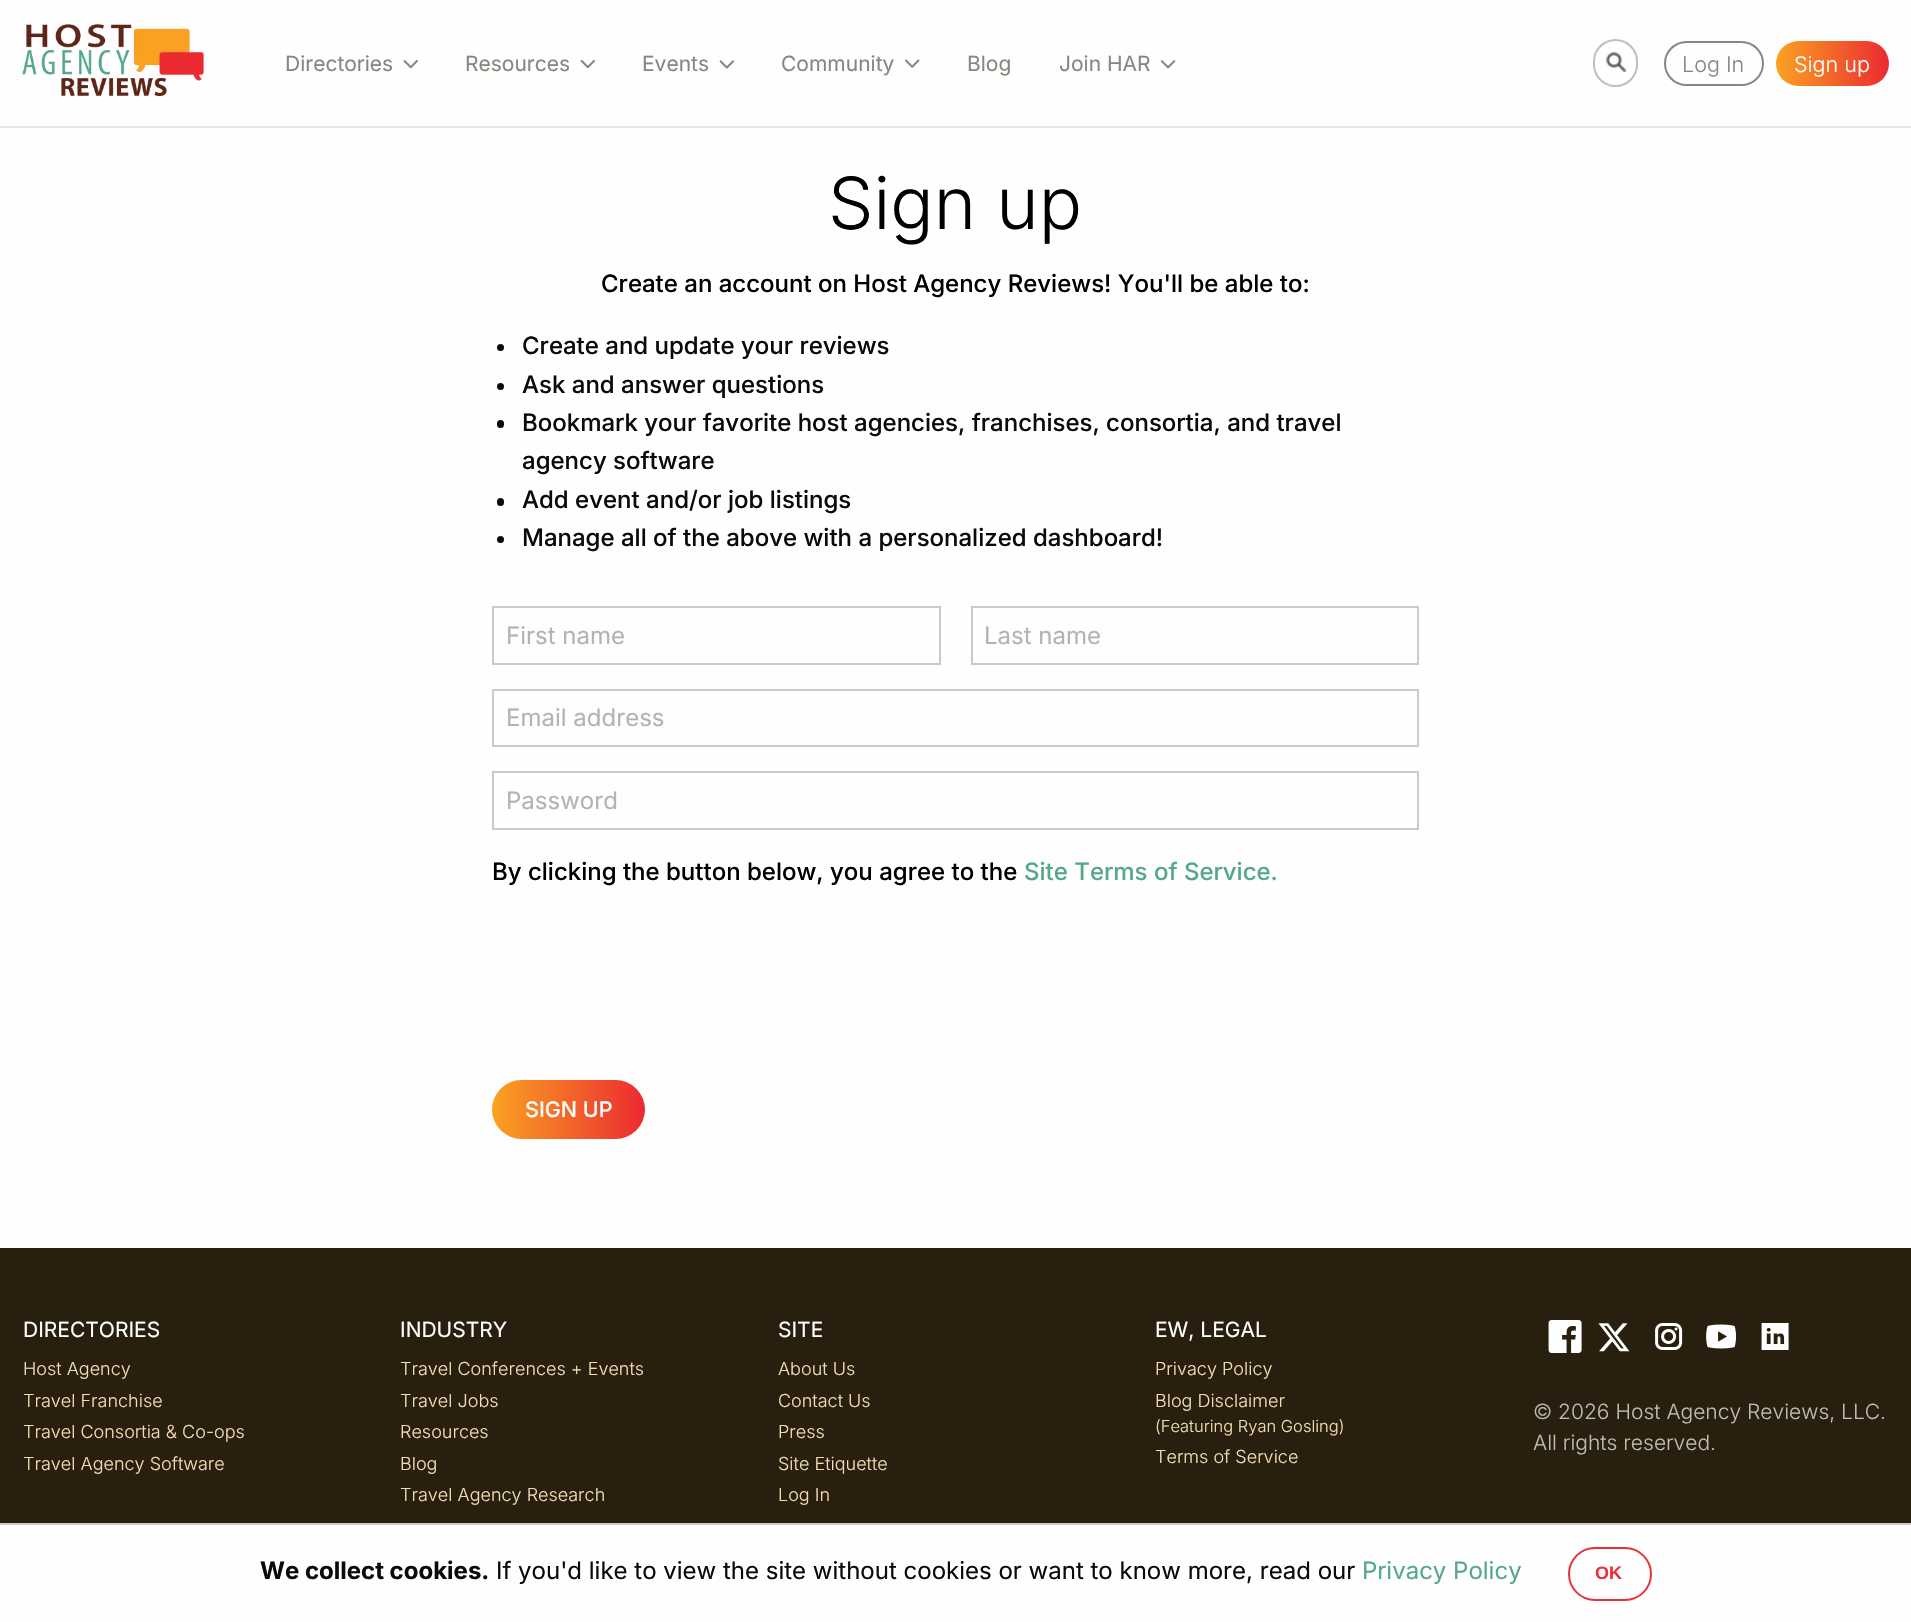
void draw(SkCanvas* canvas) {
    SkPaint paint;
    paint.setAntiAlias(true);
    auto face = [&](const char* family, int weight, float size, bool italic = false) {
        SkFontStyle style(weight, SkFontStyle::kNormal_Width,
            italic ? SkFontStyle::kItalic_Slant : SkFontStyle::kUpright_Slant);
        SkFont result(fontMgr->matchFamilyStyle(family, style), size);
        result.setSubpixel(true);
        return result;
    };
    auto write = [&](const char* s, float x, float y, const SkFont& font, SkColor color) {
        SkPaint ink(SkColor4f::FromColor(color));
        ink.setAntiAlias(true);
        canvas->drawString(s, x, y, font, ink);
    };
    auto block = [&](float x, float y, float w, float h, SkColor color) {
        SkPaint ink(SkColor4f::FromColor(color));
        ink.setAntiAlias(true);
        canvas->drawRect(SkRect::MakeXYWH(x, y, w, h), ink);
    };
    auto card = [&](float x, float y, float w, float h, float radius, SkColor color) {
        SkPaint ink(SkColor4f::FromColor(color));
        ink.setAntiAlias(true);
        canvas->drawRoundRect(SkRect::MakeXYWH(x, y, w, h), radius, radius, ink);
    };
    auto paste = [&](const char* path, float x, float y, float w, float h) {
        auto image = SkImages::DeferredFromEncodedData(SkData::MakeFromFileName(path));
        canvas->drawImageRect(image, SkRect::MakeXYWH(x, y, w, h), SkSamplingOptions());
    };
    canvas->clear(SkColorSetRGB(40, 31, 15));
    block(0, 0, 1911, 1248, SkColorSetRGB(254, 254, 254));
    block(0, 126, 1911, 2, SkColorSetRGB(231, 230, 228));
    paste("pic1.png", 22, 24, 182, 72);
    auto kFont1 = face("Inter", 400, 21);
    write("Directories", 285, 71, kFont1, SkColorSetRGB(138, 134, 125));
    paste("pic2.png", 403, 60, 15, 9);
    write("Resources", 465, 71, kFont1, SkColorSetRGB(138, 134, 125));
    paste("pic3.png", 580, 59, 15, 10);
    write("Events", 642, 71, kFont1, SkColorSetRGB(138, 134, 125));
    paste("pic4.png", 719, 60, 15, 9);
    write("Community", 781, 71, kFont1, SkColorSetRGB(138, 134, 125));
    paste("pic5.png", 905, 59, 15, 9);
    write("Blog", 967, 71, kFont1, SkColorSetRGB(138, 134, 125));
    write("Join HAR", 1059, 71, kFont1, SkColorSetRGB(138, 134, 125));
    paste("pic6.png", 1160, 60, 16, 9);
    paste("pic7.png", 1606, 52, 20, 20);
    paint.setStyle(SkPaint::kStroke_Style);
    paint.setStrokeWidth(2);
    paint.setColor(SkColorSetRGB(191, 191, 191));
    canvas->drawRoundRect(SkRect::MakeXYWH(1594, 40, 43, 46), 21.5f, 21.5f, paint);
    paint.setColor(SkColorSetRGB(138, 134, 125));
    canvas->drawRoundRect(SkRect::MakeXYWH(1665, 42, 98, 43), 21.5f, 21.5f, paint);
    auto kFont2 = face("Inter", 300, 21.5f);
    write("Log In", 1682, 72, kFont2, SkColorSetRGB(138, 134, 125));
    paint.setStyle(SkPaint::kFill_Style);
    {
        const SkColor colors[] = {SkColorSetRGB(250, 162, 34), SkColorSetRGB(235, 42, 49)};
        const float stops[] = {0, 1};
        const SkPoint ends[] = {{1776, 63}, {1889, 63}};
        paint.setShader(SkGradientShader::MakeLinear(ends, colors, stops, 2, SkTileMode::kClamp));
        paint.setAlpha(255);
    }
    canvas->drawRoundRect(SkRect::MakeXYWH(1776, 41, 113, 45), 22.5f, 22.5f, paint);
    write("Sign up", 1794, 72, kFont2, SkColorSetRGB(254, 254, 254));
    auto kFont3 = face("Inter", 300, 72);
    write("Sign up", 828, 229, kFont3, SK_ColorBLACK);
    auto kFont4 = face("Inter", 500, 24);
    write("Create an account on Host Agency Reviews! You'll be able to:", 601, 292, kFont4, SK_ColorBLACK);
    paint.setShader(nullptr);
    paint.setColor(SkColorSetRGB(10, 10, 10));
    canvas->drawCircle(500.5f, 347.5f, 3.5f, paint);
    write("Create and update your reviews", 522, 354, kFont4, SkColorSetRGB(10, 10, 10));
    canvas->drawCircle(500.5f, 386.5f, 3.5f, paint);
    write("Ask and answer questions", 522, 393, kFont4, SkColorSetRGB(10, 10, 10));
    card(497, 420, 7, 8, 3.5f, SkColorSetRGB(10, 10, 10));
    write("Bookmark your favorite host agencies, franchises, consortia, and travel", 522, 431, kFont4, SkColorSetRGB(10, 10, 10));
    write("agency software", 522, 469, kFont4, SkColorSetRGB(10, 10, 10));
    card(497, 498, 7, 8, 3.5f, SkColorSetRGB(10, 10, 10));
    write("Add event and/or job listings", 522, 508, kFont4, SkColorSetRGB(10, 10, 10));
    canvas->drawCircle(500.5f, 539.5f, 3.5f, paint);
    write("Manage all of the above with a personalized dashboard!", 522, 546, kFont4, SkColorSetRGB(10, 10, 10));
    paint.setStyle(SkPaint::kStroke_Style);
    paint.setColor(SkColorSetRGB(202, 202, 202));
    canvas->drawRect(SkRect::MakeXYWH(493, 607, 447, 57), paint);
    auto kFont5 = face("Inter", 400, 24);
    write("First name", 506, 644, kFont5, SkColorSetRGB(179, 179, 179));
    canvas->drawRect(SkRect::MakeXYWH(972, 607, 446, 57), paint);
    write("Last name", 984, 644, kFont5, SkColorSetRGB(179, 179, 179));
    canvas->drawRect(SkRect::MakeXYWH(493, 690, 925, 56), paint);
    write("Email address", 506, 726, kFont5, SkColorSetRGB(179, 179, 179));
    canvas->drawRect(SkRect::MakeXYWH(493, 772, 925, 57), paint);
    write("Password", 506, 809, kFont5, SkColorSetRGB(179, 179, 179));
    write("By clicking the button below, you agree to the", 492, 880, kFont4, SK_ColorBLACK);
    write("Site Terms of Service.", 1024, 880, kFont4, SkColorSetRGB(85, 167, 142));
    paint.setStyle(SkPaint::kFill_Style);
    {
        const SkColor colors[] = {SkColorSetRGB(250, 162, 34), SkColorSetRGB(235, 42, 49)};
        const float stops[] = {0, 1};
        const SkPoint ends[] = {{492, 1109}, {645, 1109}};
        paint.setShader(SkGradientShader::MakeLinear(ends, colors, stops, 2, SkTileMode::kClamp));
        paint.setAlpha(255);
    }
    canvas->drawRoundRect(SkRect::MakeXYWH(492, 1080, 153, 59), 29.5f, 29.5f, paint);
    auto kFont6 = face("Inter", 500, 21.5f);
    write("SIGN UP", 525, 1117, kFont6, SkColorSetRGB(254, 254, 254));
    write("DIRECTORIES", 23, 1337, kFont1, SkColorSetRGB(254, 254, 254));
    auto kFont7 = face("Inter", 300, 18);
    write("Host Agency", 23, 1375, kFont7, SkColorSetRGB(243, 220, 181));
    write("Travel Franchise", 23, 1407, kFont7, SkColorSetRGB(243, 220, 181));
    write("Travel Consortia & Co-ops", 23, 1438, kFont7, SkColorSetRGB(243, 220, 181));
    write("Travel Agency Software", 23, 1470, kFont7, SkColorSetRGB(243, 220, 181));
    write("INDUSTRY", 400, 1337, kFont1, SkColorSetRGB(254, 254, 254));
    write("Travel Conferences + Events", 400, 1375, kFont7, SkColorSetRGB(243, 220, 181));
    write("Travel Jobs", 400, 1407, kFont7, SkColorSetRGB(243, 220, 181));
    write("Resources", 400, 1438, kFont7, SkColorSetRGB(243, 220, 181));
    write("Blog", 400, 1470, kFont7, SkColorSetRGB(243, 220, 181));
    write("Travel Agency Research", 400, 1501, kFont7, SkColorSetRGB(243, 220, 181));
    write("SITE", 778, 1337, kFont1, SkColorSetRGB(254, 254, 254));
    write("About Us", 778, 1375, kFont7, SkColorSetRGB(243, 220, 181));
    write("Contact Us", 778, 1407, kFont7, SkColorSetRGB(243, 220, 181));
    write("Press", 778, 1438, kFont7, SkColorSetRGB(243, 220, 181));
    write("Site Etiquette", 778, 1470, kFont7, SkColorSetRGB(243, 220, 181));
    write("Log In", 778, 1501, kFont7, SkColorSetRGB(243, 220, 181));
    write("EW, LEGAL", 1155, 1337, kFont1, SkColorSetRGB(254, 254, 254));
    write("Privacy Policy", 1155, 1375, kFont7, SkColorSetRGB(243, 220, 181));
    write("Blog Disclaimer", 1155, 1407, kFont7, SkColorSetRGB(243, 220, 181));
    auto kFont8 = face("Inter", 300, 16.5f);
    write("(Featuring Ryan Gosling)", 1155, 1432, kFont8, SkColorSetRGB(243, 220, 181));
    write("Terms of Service", 1155, 1463, kFont7, SkColorSetRGB(243, 220, 181));
    paste("pic8.png", 1548, 1320, 34, 33);
    paste("pic9.png", 1598, 1323, 32, 29);
    paste("pic10.png", 1655, 1323, 28, 27);
    paste("pic11.png", 1706, 1324, 31, 25);
    paste("pic12.png", 1761, 1323, 28, 27);
    auto kFont9 = face("Inter", 300, 21);
    write("© 2026 Host Agency Reviews, LLC.", 1533, 1419, kFont9, SkColorSetRGB(191, 188, 183));
    write("All rights reserved.", 1533, 1450, kFont9, SkColorSetRGB(191, 188, 183));
    block(0, 1525, 1911, 97, SkColorSetRGB(254, 254, 254));
    block(0, 1523, 1911, 2, SkColorSetRGB(204, 204, 204));
    auto kFont10 = face("Inter", 700, 24);
    write("We collect cookies.", 260, 1579, kFont10, SkColorSetRGB(10, 10, 10));
    write("If you'd like to view the site without cookies or want to know more, read our", 496, 1579, kFont5, SkColorSetRGB(10, 10, 10));
    write("Privacy Policy", 1362, 1579, kFont5, SkColorSetRGB(85, 167, 142));
    paint.setStyle(SkPaint::kStroke_Style);
    paint.setShader(nullptr);
    paint.setColor(SkColorSetRGB(232, 49, 56));
    canvas->drawRoundRect(SkRect::MakeXYWH(1569, 1548, 82, 52), 26, 26, paint);
    auto kFont11 = face("Liberation Sans", 700, 18);
    write("OK", 1595, 1579, kFont11, SkColorSetRGB(232, 49, 56));
}
